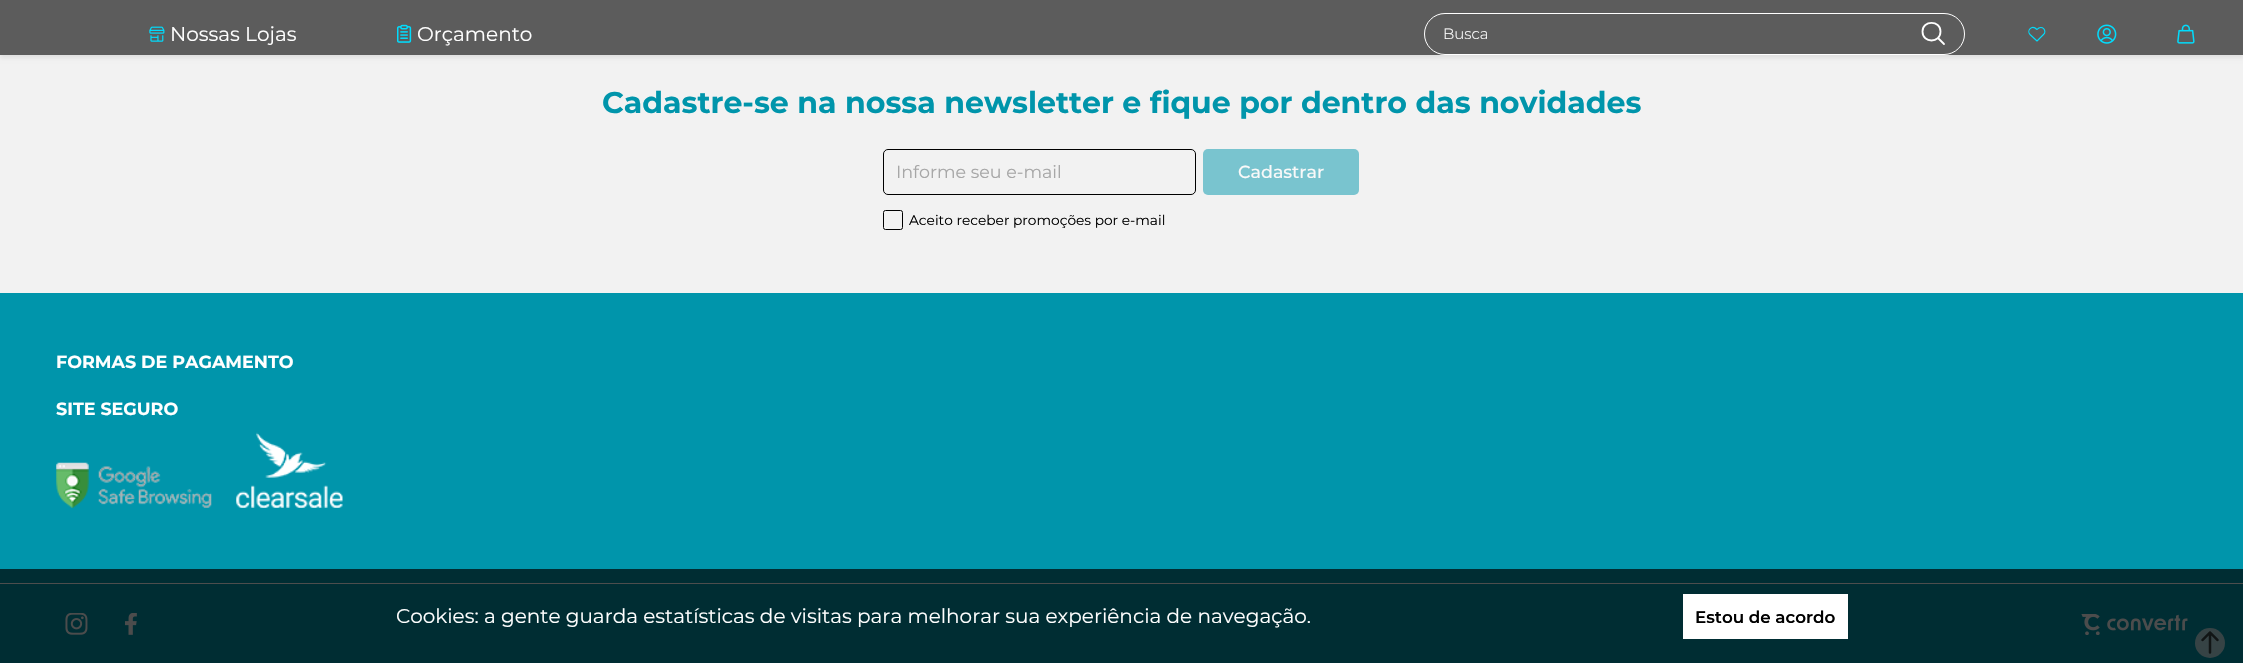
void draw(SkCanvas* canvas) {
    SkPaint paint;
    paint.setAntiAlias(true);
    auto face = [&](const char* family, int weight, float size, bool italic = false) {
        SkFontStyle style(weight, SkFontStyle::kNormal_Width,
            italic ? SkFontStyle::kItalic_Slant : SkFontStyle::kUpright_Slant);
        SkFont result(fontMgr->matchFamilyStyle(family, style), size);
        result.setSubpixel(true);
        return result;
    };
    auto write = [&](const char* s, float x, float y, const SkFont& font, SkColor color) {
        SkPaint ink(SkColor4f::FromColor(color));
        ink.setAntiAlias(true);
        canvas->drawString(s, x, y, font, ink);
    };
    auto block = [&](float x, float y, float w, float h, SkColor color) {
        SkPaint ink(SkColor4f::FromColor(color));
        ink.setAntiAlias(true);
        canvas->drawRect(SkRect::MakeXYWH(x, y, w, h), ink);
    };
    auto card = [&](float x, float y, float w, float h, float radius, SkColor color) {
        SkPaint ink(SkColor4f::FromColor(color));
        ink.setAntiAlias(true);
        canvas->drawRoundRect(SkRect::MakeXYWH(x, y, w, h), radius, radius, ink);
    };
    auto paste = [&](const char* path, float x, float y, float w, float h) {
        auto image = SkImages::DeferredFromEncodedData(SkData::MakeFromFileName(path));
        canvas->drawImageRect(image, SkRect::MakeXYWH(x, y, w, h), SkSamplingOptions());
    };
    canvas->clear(SkColorSetRGB(0, 149, 171));
    block(0, 55, 2243, 238, SkColorSetRGB(242, 242, 242));
    paint.setColor(SkColorSetARGB(20, 0, 0, 0));
    paint.setMaskFilter(SkMaskFilter::MakeBlur(kNormal_SkBlurStyle, 2));
    canvas->drawRect(SkRect::MakeXYWH(0, 3, 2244, 55), paint);
    paint.setMaskFilter(nullptr);
    block(0, 0, 2243, 55, SkColorSetRGB(92, 92, 92));
    paste("pic1.png", 149, 26, 16, 16);
    auto kFont1 = face("Montserrat", 400, 20);
    write("Nossas Lojas", 170, 41, kFont1, SK_ColorWHITE);
    paste("pic2.png", 397, 24, 15, 19);
    write("Orçamento", 417, 41, kFont1, SK_ColorWHITE);
    paint.setStyle(SkPaint::kStroke_Style);
    paint.setStrokeWidth(1);
    paint.setColor(SK_ColorWHITE);
    canvas->drawRoundRect(SkRect::MakeXYWH(1424.5f, 13.5f, 540, 41), 20.5f, 20.5f, paint);
    auto kFont2 = face("Montserrat", 300, 15);
    write("Busca", 1443, 39, kFont2, SK_ColorWHITE);
    paint.setStrokeWidth(1.8f);
    paint.setStrokeCap(SkPaint::kRound_Cap);
    paint.setStrokeJoin(SkPaint::kRound_Join);
    canvas->drawPath(SkPathBuilder().moveTo(1944, 44).lineTo(1938, 38).moveTo(1940.5f, 31.5f).cubicTo(1940.5f, 43.5f, 1922.5f, 43.5f, 1922.5f, 31.5f).cubicTo(1922.5f, 20, 1940.5f, 20, 1940.5f, 31.5f).close().detach(), paint);
    paint.setStrokeWidth(1.1f);
    paint.setColor(SkColorSetRGB(0, 220, 253));
    canvas->drawPath(SkPathBuilder().moveTo(2037, 41).lineTo(2030, 34.5f).cubicTo(2026.5f, 31, 2031.5f, 24, 2037, 29.5f).cubicTo(2042, 24, 2047.5f, 31, 2043.5f, 34.5f).close().detach(), paint);
    paste("pic3.png", 2097, 24, 20, 20);
    paste("pic4.png", 2177, 24, 18, 20);
    block(0, 569, 2243, 94, SkColorSetRGB(0, 45, 51));
    paint.setStyle(SkPaint::kFill_Style);
    paint.setColor(SkColorSetRGB(54, 67, 69));
    canvas->drawCircle(2210, 643, 15, paint);
    paste("pic5.png", 2201, 631, 18, 23);
    auto kFont3 = face("Montserrat", 700, 30);
    write("Cadastre-se na nossa newsletter e fique por dentro das novidades", 602, 113, kFont3, SkColorSetRGB(0, 149, 171));
    paint.setStyle(SkPaint::kStroke_Style);
    paint.setStrokeWidth(1);
    paint.setStrokeCap(SkPaint::kButt_Cap);
    paint.setStrokeJoin(SkPaint::kMiter_Join);
    paint.setColor(SK_ColorBLACK);
    canvas->drawRoundRect(SkRect::MakeXYWH(883.5f, 149.5f, 312, 45), 4.5f, 4.5f, paint);
    auto kFont4 = face("Montserrat", 400, 17.5f);
    write("Informe seu e-mail", 896, 178, kFont4, SkColorSetRGB(167, 167, 167));
    card(1203, 149, 156, 46, 5, SkColorSetRGB(121, 196, 207));
    auto kFont5 = face("Montserrat", 500, 17.5f);
    write("Cadastrar", 1238, 178, kFont5, SkColorSetRGB(249, 249, 249));
    canvas->drawRoundRect(SkRect::MakeXYWH(883.5f, 210.5f, 19, 19), 2, 2, paint);
    auto kFont6 = face("Montserrat", 400, 13.75f);
    write("Aceito receber promoções por e-mail", 909, 225, kFont6, SK_ColorBLACK);
    auto kFont7 = face("Montserrat", 700, 17.5f);
    write("FORMAS DE PAGAMENTO", 56, 368, kFont7, SK_ColorWHITE);
    write("SITE SEGURO", 56, 415, kFont7, SK_ColorWHITE);
    paste("pic6.png", 56, 462, 156, 46);
    paste("pic7.png", 236, 432, 107, 76);
    block(0, 583, 2243, 1, SkColorSetRGB(77, 77, 77));
    paste("pic8.png", 65, 613, 23, 22);
    paste("pic9.png", 125, 613, 12, 22);
    paste("pic10.png", 2081, 614, 107, 21);
    write("Cookies: a gente guarda estatísticas de visitas para melhorar sua experiência de navegação.", 396, 623, kFont1, SK_ColorWHITE);
    block(1683, 594, 165, 45, SK_ColorWHITE);
    auto kFont8 = face("Montserrat", 600, 16.75f);
    write("Estou de acordo", 1695, 623, kFont8, SK_ColorBLACK);
}
